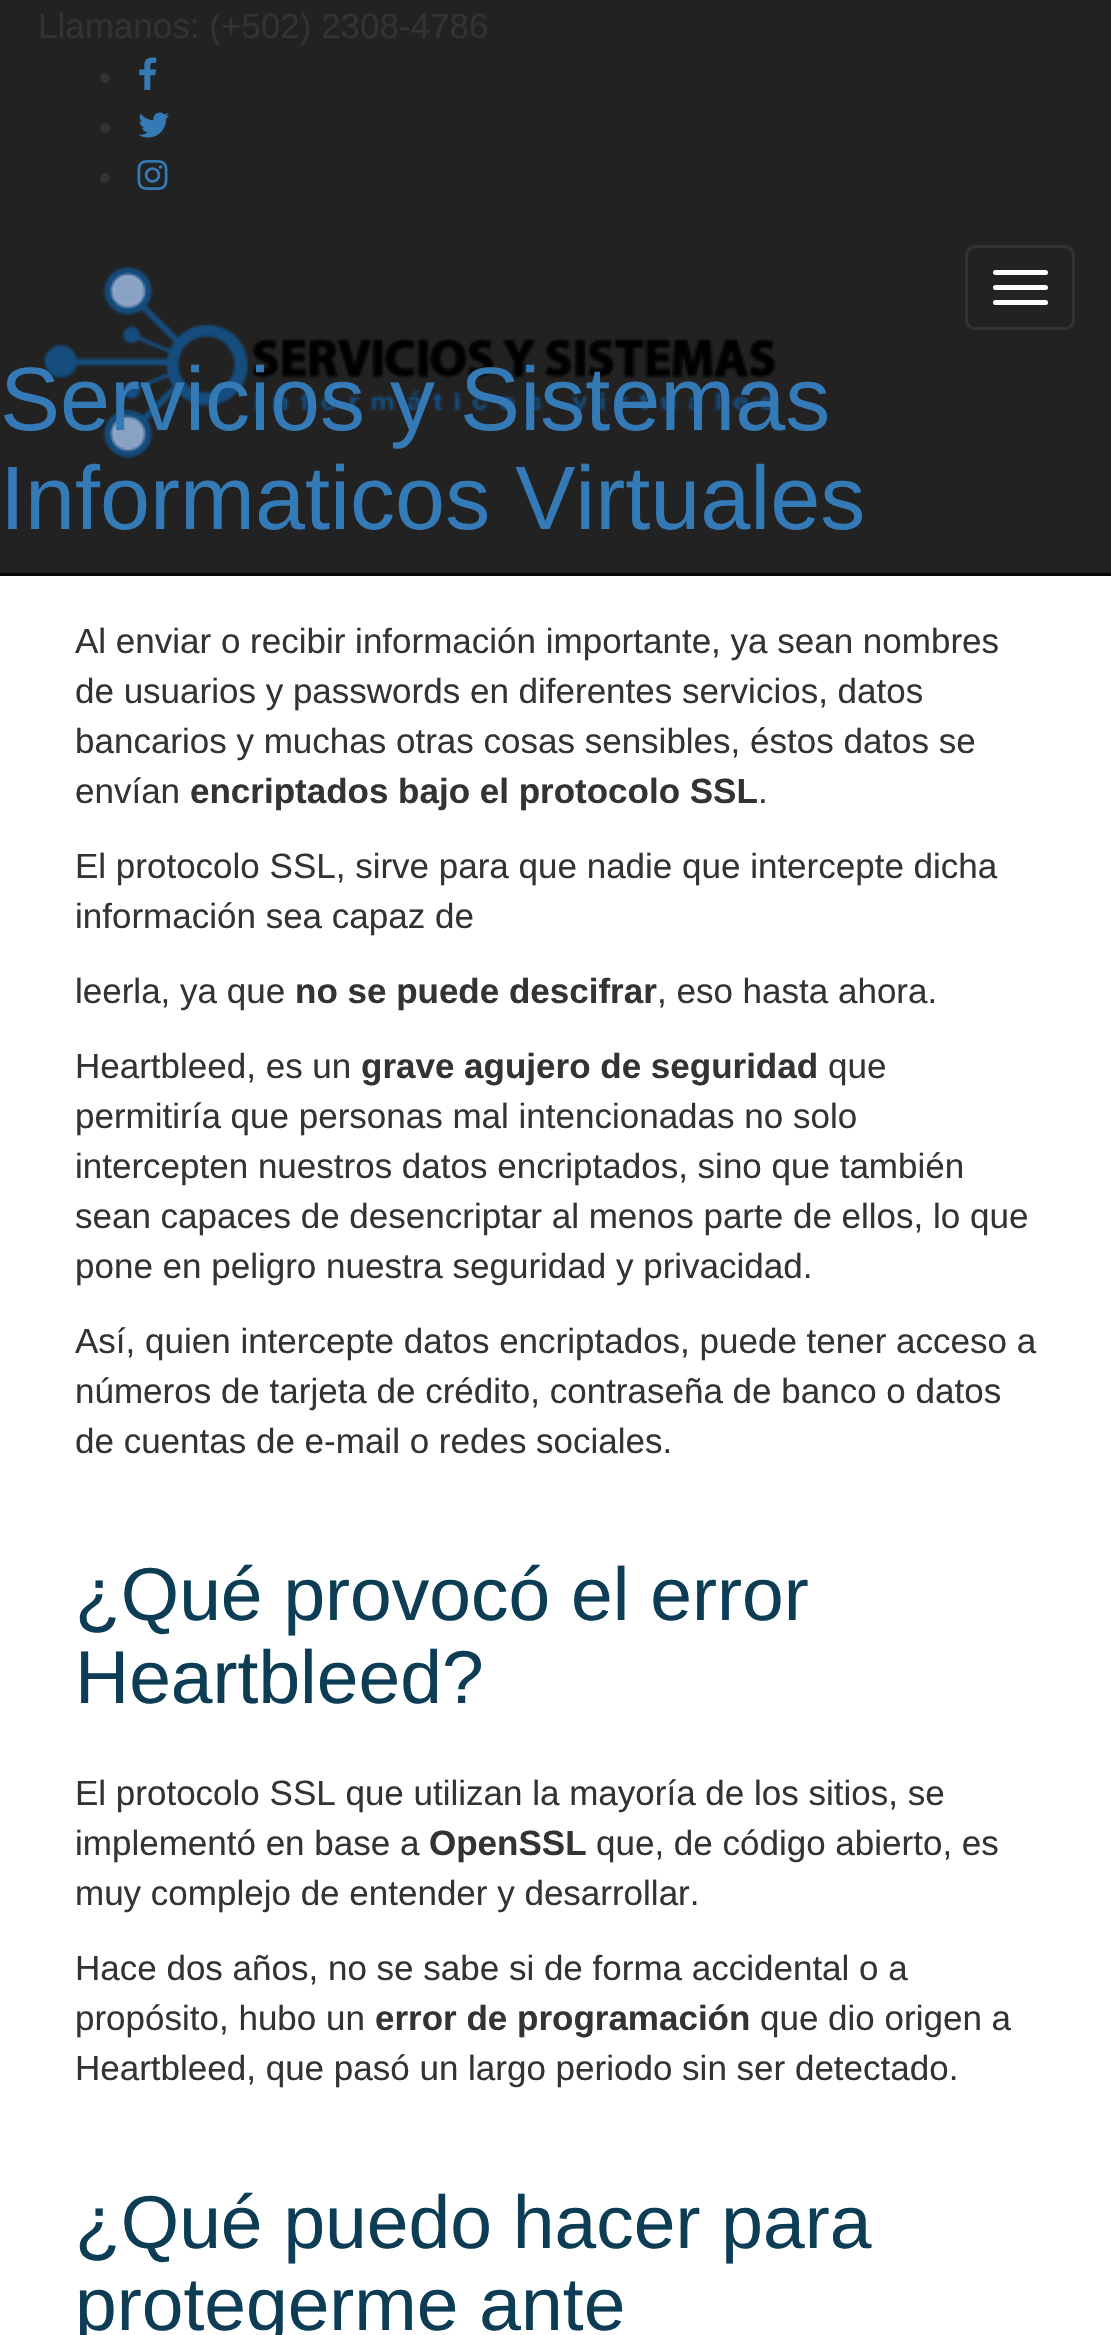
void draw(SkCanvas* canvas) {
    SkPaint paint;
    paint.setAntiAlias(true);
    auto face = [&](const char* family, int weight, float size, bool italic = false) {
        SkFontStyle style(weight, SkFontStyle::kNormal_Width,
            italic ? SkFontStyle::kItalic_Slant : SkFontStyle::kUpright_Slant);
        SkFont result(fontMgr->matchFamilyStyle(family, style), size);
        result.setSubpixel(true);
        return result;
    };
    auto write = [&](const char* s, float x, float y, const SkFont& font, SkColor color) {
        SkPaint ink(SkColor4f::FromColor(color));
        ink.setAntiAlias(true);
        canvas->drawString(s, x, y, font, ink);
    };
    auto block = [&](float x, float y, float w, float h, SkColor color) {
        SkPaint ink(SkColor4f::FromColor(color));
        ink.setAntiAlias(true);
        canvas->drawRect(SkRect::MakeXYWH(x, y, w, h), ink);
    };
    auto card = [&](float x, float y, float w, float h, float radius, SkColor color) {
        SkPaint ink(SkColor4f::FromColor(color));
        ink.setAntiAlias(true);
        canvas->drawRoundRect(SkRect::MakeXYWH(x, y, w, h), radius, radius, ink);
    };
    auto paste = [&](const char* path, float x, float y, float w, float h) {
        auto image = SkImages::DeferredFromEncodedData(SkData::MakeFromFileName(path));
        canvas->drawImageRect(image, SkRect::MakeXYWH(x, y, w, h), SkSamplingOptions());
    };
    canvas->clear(SK_ColorWHITE);
    block(0, 0, 1111, 573, SkColorSetRGB(34, 34, 34));
    block(0, 573, 1111, 3, SkColorSetRGB(8, 8, 8));
    auto kFont1 = face("Liberation Sans", 400, 35);
    write("Llamanos: (+502) 2308-4786", 38, 38, kFont1, SkColorSetRGB(51, 51, 51));
    paint.setColor(SkColorSetRGB(51, 51, 51));
    canvas->drawCircle(105, 78, 5, paint);
    paste("pic1.png", 139, 57, 18, 33);
    canvas->drawCircle(105, 128, 5, paint);
    paste("pic2.png", 138, 112, 31, 26);
    canvas->drawCircle(105, 178, 5, paint);
    paste("pic3.png", 137, 160, 31, 30);
    paste("pic4.png", 42, 266, 734, 193);
    paint.setStyle(SkPaint::kStroke_Style);
    paint.setStrokeWidth(3);
    canvas->drawRoundRect(SkRect::MakeXYWH(966.5f, 246.5f, 107, 82), 8.5f, 8.5f, paint);
    card(993, 270, 55, 5, 2.5f, SK_ColorWHITE);
    card(993, 285, 55, 5, 2.5f, SK_ColorWHITE);
    card(993, 300, 55, 5, 2.5f, SK_ColorWHITE);
    auto kFont2 = face("Liberation Sans", 400, 90);
    write("Servicios y Sistemas", 0, 430, kFont2, SkColorSetRGB(51, 122, 183));
    write("Informaticos Virtuales", 0, 529, kFont2, SkColorSetRGB(51, 122, 183));
    write("Al enviar o recibir información importante, ya sean nombres", 75, 653, kFont1, SkColorSetRGB(51, 51, 51));
    write("de usuarios y passwords en diferentes servicios, datos", 75, 703, kFont1, SkColorSetRGB(51, 51, 51));
    write("bancarios y muchas otras cosas sensibles, éstos datos se", 75, 753, kFont1, SkColorSetRGB(51, 51, 51));
    write("envían", 75, 803, kFont1, SkColorSetRGB(51, 51, 51));
    auto kFont3 = face("Liberation Sans", 700, 35);
    write("encriptados bajo el protocolo SSL", 190, 803, kFont3, SkColorSetRGB(51, 51, 51));
    write(".", 758, 803, kFont1, SkColorSetRGB(51, 51, 51));
    write("El protocolo SSL, sirve para que nadie que intercepte dicha", 75, 878, kFont1, SkColorSetRGB(51, 51, 51));
    write("información sea capaz de", 75, 928, kFont1, SkColorSetRGB(51, 51, 51));
    write("leerla, ya que", 75, 1003, kFont1, SkColorSetRGB(51, 51, 51));
    write("no se puede descifrar", 295, 1003, kFont3, SkColorSetRGB(51, 51, 51));
    write(", eso hasta ahora.", 657, 1003, kFont1, SkColorSetRGB(51, 51, 51));
    write("Heartbleed, es un", 75, 1078, kFont1, SkColorSetRGB(51, 51, 51));
    write("grave agujero de seguridad", 361, 1078, kFont3, SkColorSetRGB(51, 51, 51));
    write("que", 828, 1078, kFont1, SkColorSetRGB(51, 51, 51));
    write("permitiría que personas mal intencionadas no solo", 75, 1128, kFont1, SkColorSetRGB(51, 51, 51));
    write("intercepten nuestros datos encriptados, sino que también", 75, 1178, kFont1, SkColorSetRGB(51, 51, 51));
    write("sean capaces de desencriptar al menos parte de ellos, lo que", 75, 1228, kFont1, SkColorSetRGB(51, 51, 51));
    write("pone en peligro nuestra seguridad y privacidad.", 75, 1278, kFont1, SkColorSetRGB(51, 51, 51));
    write("Así, quien intercepte datos encriptados, puede tener acceso a", 75, 1353, kFont1, SkColorSetRGB(51, 51, 51));
    write("números de tarjeta de crédito, contraseña de banco o datos", 75, 1403, kFont1, SkColorSetRGB(51, 51, 51));
    write("de cuentas de e-mail o redes sociales.", 75, 1453, kFont1, SkColorSetRGB(51, 51, 51));
    auto kFont4 = face("Liberation Sans", 400, 75);
    write("¿Qué provocó el error", 75, 1620, kFont4, SkColorSetRGB(13, 60, 85));
    write("Heartbleed?", 75, 1703, kFont4, SkColorSetRGB(13, 60, 85));
    write("El protocolo SSL que utilizan la mayoría de los sitios, se", 75, 1805, kFont1, SkColorSetRGB(51, 51, 51));
    write("implementó en base a", 75, 1855, kFont1, SkColorSetRGB(51, 51, 51));
    write("OpenSSL", 429, 1855, kFont3, SkColorSetRGB(51, 51, 51));
    write("que, de código abierto, es", 596, 1855, kFont1, SkColorSetRGB(51, 51, 51));
    write("muy complejo de entender y desarrollar.", 75, 1905, kFont1, SkColorSetRGB(51, 51, 51));
    write("Hace dos años, no se sabe si de forma accidental o a", 75, 1980, kFont1, SkColorSetRGB(51, 51, 51));
    write("propósito, hubo un", 75, 2030, kFont1, SkColorSetRGB(51, 51, 51));
    write("error de programación", 375, 2030, kFont3, SkColorSetRGB(51, 51, 51));
    write("que dio origen a", 760, 2030, kFont1, SkColorSetRGB(51, 51, 51));
    write("Heartbleed, que pasó un largo periodo sin ser detectado.", 75, 2080, kFont1, SkColorSetRGB(51, 51, 51));
    write("¿Qué puedo hacer para", 75, 2248, kFont4, SkColorSetRGB(13, 60, 85));
    write("protegerme ante", 75, 2330, kFont4, SkColorSetRGB(13, 60, 85));
}
